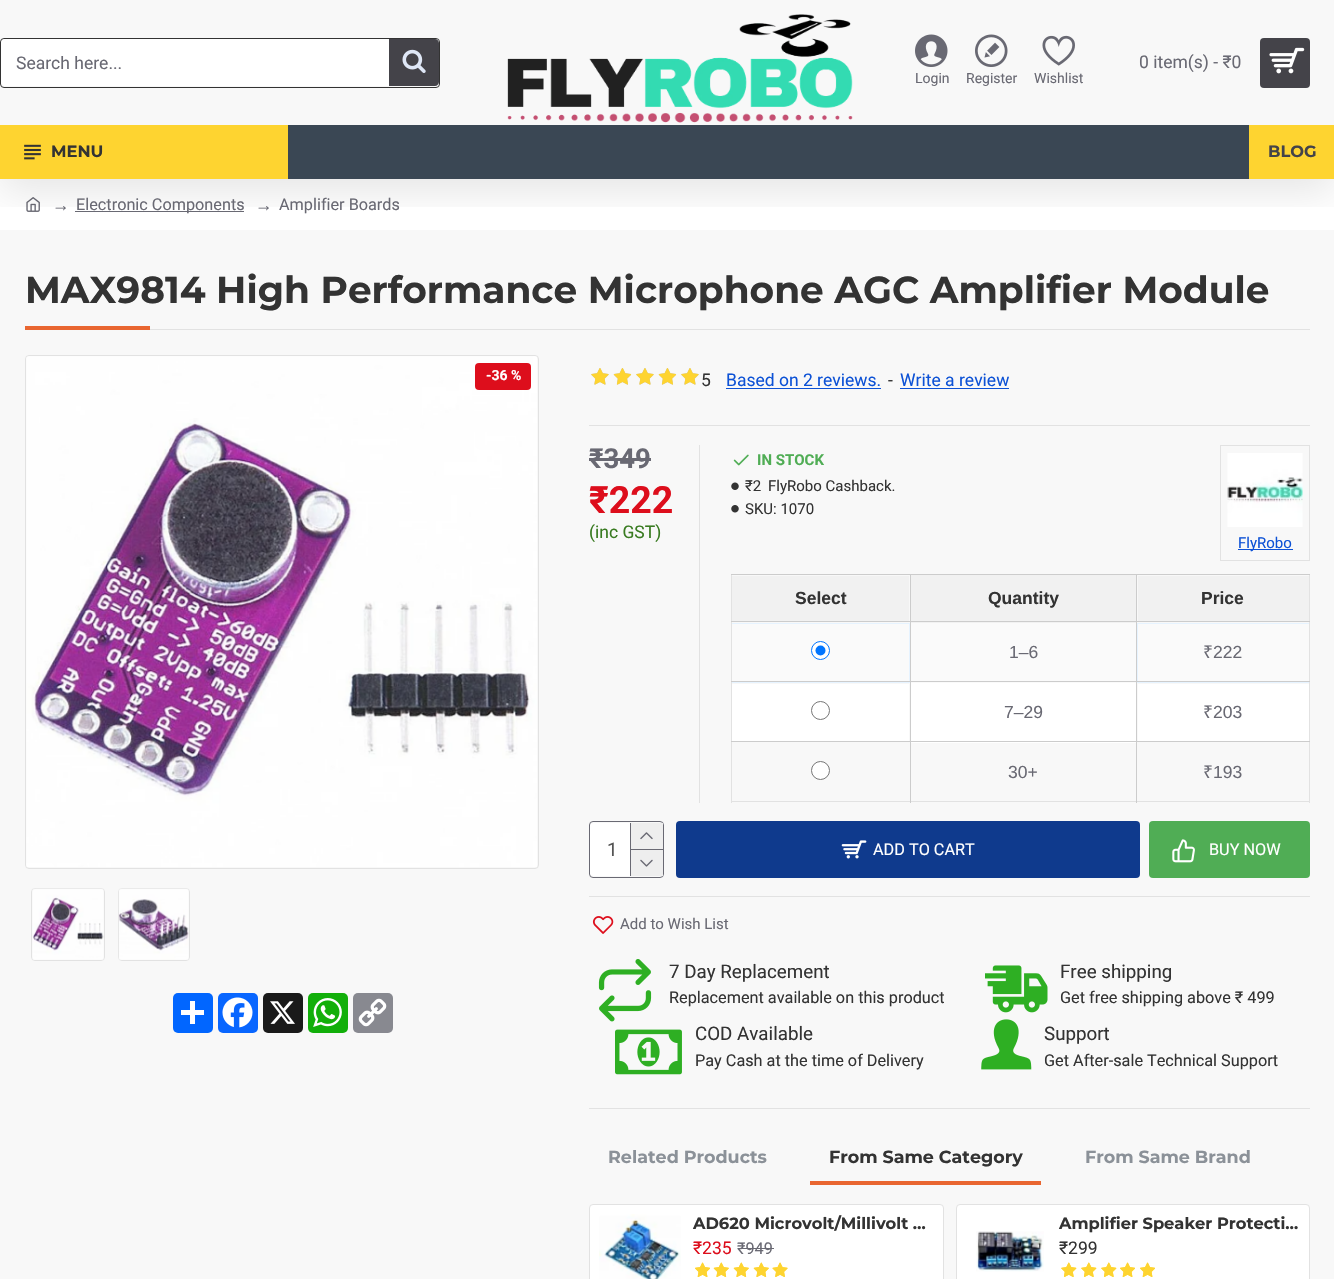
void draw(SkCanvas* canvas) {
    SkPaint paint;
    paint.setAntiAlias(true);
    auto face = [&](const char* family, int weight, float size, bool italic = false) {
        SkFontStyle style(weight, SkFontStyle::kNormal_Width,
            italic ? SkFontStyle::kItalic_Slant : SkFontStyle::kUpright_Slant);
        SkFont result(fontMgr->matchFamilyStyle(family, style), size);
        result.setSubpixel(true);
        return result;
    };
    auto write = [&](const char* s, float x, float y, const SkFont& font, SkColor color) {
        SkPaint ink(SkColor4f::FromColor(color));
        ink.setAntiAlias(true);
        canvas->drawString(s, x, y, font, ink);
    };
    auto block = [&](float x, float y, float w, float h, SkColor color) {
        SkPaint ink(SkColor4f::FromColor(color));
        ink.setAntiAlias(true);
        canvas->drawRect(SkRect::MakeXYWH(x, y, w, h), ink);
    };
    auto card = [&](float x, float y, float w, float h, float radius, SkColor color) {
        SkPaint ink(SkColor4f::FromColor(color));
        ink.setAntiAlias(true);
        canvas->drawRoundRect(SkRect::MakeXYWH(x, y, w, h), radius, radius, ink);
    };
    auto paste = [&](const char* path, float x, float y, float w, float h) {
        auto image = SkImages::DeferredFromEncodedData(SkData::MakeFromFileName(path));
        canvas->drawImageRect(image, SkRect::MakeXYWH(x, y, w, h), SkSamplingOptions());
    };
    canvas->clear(SkColorSetRGB(248, 248, 248));
    block(0, 179, 1334, 51, SK_ColorWHITE);
    paste("pic8.png", 26, 197, 14, 15);
    block(75, 211, 169, 1, SkColorSetRGB(105, 105, 115));
    canvas->save();
    canvas->clipRect(SkRect::MakeXYWH(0, 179, 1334, 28));
    paint.setColor(SkColorSetARGB(26, 0, 0, 0));
    paint.setMaskFilter(SkMaskFilter::MakeBlur(kNormal_SkBlurStyle, 19));
    canvas->drawRect(SkRect::MakeXYWH(0, 13, 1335, 178), paint);
    paint.setMaskFilter(nullptr);
    canvas->restore();
    paint.setStyle(SkPaint::kStroke_Style);
    paint.setStrokeWidth(1);
    paint.setColor(SkColorSetRGB(51, 51, 51));
    canvas->drawRoundRect(SkRect::MakeXYWH(0.5f, 38.5f, 439, 49), 3.5f, 3.5f, paint);
    paint.setStyle(SkPaint::kFill_Style);
    paint.setColor(SK_ColorWHITE);
    canvas->drawPath(SkPathBuilder().moveTo(5, 39).lineTo(389, 39).lineTo(389, 86).lineTo(5, 86).cubicTo(3, 86, 1, 84, 1, 82).lineTo(1, 43).cubicTo(1, 41, 3, 39, 5, 39).close().detach(), paint);
    auto kFont1 = face("Roboto", 400, 17.5f);
    write("Search here...", 16, 69, kFont1, SkColorSetRGB(105, 105, 115));
    paint.setColor(SkColorSetRGB(68, 67, 73));
    canvas->drawPath(SkPathBuilder().moveTo(389, 39).lineTo(435, 39).cubicTo(437, 39, 439, 41, 439, 43).lineTo(439, 82).cubicTo(439, 84, 437, 86, 435, 86).lineTo(389, 86).close().detach(), paint);
    paste("pic1.png", 402, 49, 24, 24);
    paste("pic2.png", 507, 14, 346, 109);
    write("0 item(s) - ₹0", 1139, 68, kFont1, SkColorSetRGB(105, 105, 115));
    card(1260, 38, 50, 50, 4, SkColorSetRGB(68, 67, 73));
    paste("pic3.png", 1269, 47, 36, 27);
    paste("pic4.png", 915, 34, 33, 33);
    auto kFont2 = face("Roboto", 400, 14);
    write("Login", 915, 83, kFont2, SkColorSetRGB(105, 105, 115));
    paste("pic5.png", 975, 34, 33, 33);
    write("Register", 966, 83, kFont2, SkColorSetRGB(105, 105, 115));
    paste("pic6.png", 1042, 35, 33, 31);
    write("Wishlist", 1034, 83, kFont2, SkColorSetRGB(105, 105, 115));
    block(0, 125, 288, 54, SkColorSetRGB(254, 212, 48));
    paste("pic7.png", 24, 144, 17, 16);
    auto kFont3 = face("Montserrat", 700, 16.25f);
    write("MENU", 51, 157, kFont3, SkColorSetRGB(51, 51, 51));
    block(288, 125, 961, 54, SkColorSetRGB(58, 71, 84));
    block(1249, 125, 85, 54, SkColorSetRGB(254, 212, 48));
    write("BLOG", 1268, 157, kFont3, SkColorSetRGB(68, 67, 73));
    auto kFont4 = face("Liberation Serif", 400, 17.5f);
    write("→", 52, 211, kFont4, SkColorSetRGB(105, 105, 115));
    auto kFont5 = face("Roboto", 400, 16.25f);
    write("Electronic Components", 76, 210, kFont5, SkColorSetRGB(105, 105, 115));
    write("→", 255, 211, kFont4, SkColorSetRGB(105, 105, 115));
    write("Amplifier Boards", 279, 210, kFont5, SkColorSetRGB(105, 105, 115));
    block(150, 329, 1160, 1, SkColorSetRGB(226, 226, 226));
    auto kFont6 = face("Montserrat", 700, 37.5f);
    write("MAX9814 High Performance Microphone AGC Amplifier Module", 25, 303, kFont6, SkColorSetRGB(51, 51, 51));
    block(25, 326, 125, 4, SkColorSetRGB(233, 102, 49));
    paint.setStyle(SkPaint::kStroke_Style);
    paint.setColor(SkColorSetRGB(226, 226, 226));
    canvas->drawRoundRect(SkRect::MakeXYWH(25.5f, 355.5f, 513, 513), 3.5f, 3.5f, paint);
    paste("pic9.png", 26, 356, 511, 511);
    card(475, 363, 56, 27, 4, SkColorSetRGB(221, 14, 28));
    auto kFont7 = face("Roboto", 700, 14);
    write("-36 %", 486, 380, kFont7, SK_ColorWHITE);
    canvas->drawRoundRect(SkRect::MakeXYWH(31.5f, 888.5f, 73, 72), 3.5f, 3.5f, paint);
    paste("pic10.png", 32, 888, 72, 72);
    canvas->drawRoundRect(SkRect::MakeXYWH(118.5f, 888.5f, 71, 72), 3.5f, 3.5f, paint);
    paste("pic11.png", 118, 888, 71, 72);
    card(173, 993, 40, 40, 5, SkColorSetRGB(1, 102, 255));
    block(190, 1001, 5, 23, SK_ColorWHITE);
    block(181, 1010, 23, 5, SK_ColorWHITE);
    card(218, 993, 40, 40, 5, SkColorSetRGB(8, 102, 255));
    paste("pic12.png", 222, 997, 31, 31);
    card(263, 993, 40, 40, 5, SkColorSetRGB(26, 26, 26));
    paste("pic13.png", 270, 1001, 25, 23);
    card(308, 993, 40, 40, 5, SkColorSetRGB(18, 175, 10));
    paste("pic14.png", 313, 998, 29, 29);
    card(353, 993, 40, 40, 5, SkColorSetRGB(136, 137, 144));
    paste("pic15.png", 358, 998, 29, 29);
    block(589, 425, 721, 1, SkColorSetRGB(226, 226, 226));
    paste("pic16.png", 591, 368, 18, 17);
    paste("pic17.png", 613, 368, 18, 17);
    paste("pic16.png", 636, 368, 18, 17);
    paste("pic17.png", 658, 368, 18, 17);
    paste("pic16.png", 681, 368, 18, 17);
    paste("pic18.png", 591, 368, 18, 17);
    paste("pic19.png", 613, 368, 19, 17);
    paste("pic18.png", 636, 368, 18, 17);
    paste("pic19.png", 658, 368, 19, 17);
    paste("pic18.png", 681, 368, 18, 17);
    write("5", 701, 386, kFont1, SkColorSetRGB(51, 51, 51));
    write("Based on 2 reviews.", 726, 386, kFont1, SkColorSetRGB(13, 82, 214));
    block(726, 388, 155, 1, SkColorSetRGB(13, 82, 214));
    write("-", 888, 386, kFont1, SkColorSetRGB(51, 51, 51));
    write("Write a review", 900, 386, kFont1, SkColorSetRGB(13, 82, 214));
    block(900, 388, 109, 1, SkColorSetRGB(13, 82, 214));
    auto kFont8 = face("Roboto", 700, 27.5f);
    write("₹349", 589, 468, kFont8, SkColorSetRGB(105, 105, 115));
    block(589, 458, 62, 3, SkColorSetRGB(105, 105, 115));
    auto kFont9 = face("Roboto", 700, 37.5f);
    write("₹222", 589, 513, kFont9, SkColorSetRGB(221, 14, 28));
    write("(inc GST)", 589, 538, kFont1, SkColorSetRGB(57, 123, 33));
    block(699, 445, 1, 358, SkColorSetRGB(226, 226, 226));
    paste("pic20.png", 733, 454, 16, 12);
    auto kFont10 = face("Roboto", 700, 15);
    write("IN STOCK", 757, 465, kFont10, SkColorSetRGB(80, 173, 85));
    paste("pic21.png", 731, 482, 8, 8);
    auto kFont11 = face("Roboto", 400, 15);
    write("₹2", 745, 491, kFont11, SkColorSetRGB(51, 51, 51));
    write("FlyRobo Cashback.", 768, 491, kFont11, SkColorSetRGB(51, 51, 51));
    paste("pic22.png", 731, 505, 8, 8);
    write("SKU: 1070", 745, 514, kFont11, SkColorSetRGB(51, 51, 51));
    canvas->drawRect(SkRect::MakeXYWH(1220.5f, 445.5f, 89, 115), paint);
    paste("pic23.png", 1227, 453, 76, 74);
    block(1238, 549, 55, 1, SkColorSetRGB(13, 82, 214));
    write("FlyRobo", 1238, 548, kFont11, SkColorSetRGB(13, 82, 214));
    block(1309, 574, 1, 229, SkColorSetRGB(226, 226, 226));
    block(731, 801, 579, 1, SkColorSetRGB(226, 226, 226));
    block(731, 574, 1, 229, SkColorSetRGB(226, 226, 226));
    block(732, 576, 177, 45, SkColorSetRGB(241, 241, 241));
    block(1136, 574, 174, 1, SkColorSetRGB(204, 204, 204));
    block(911, 575, 225, 48, SkColorSetRGB(241, 241, 241));
    block(1136, 621, 174, 1, SkColorSetRGB(204, 204, 204));
    block(732, 623, 577, 60, SkColorSetRGB(230, 243, 255));
    block(911, 623, 225, 60, SkColorSetRGB(250, 250, 250));
    block(1136, 681, 174, 1, SkColorSetRGB(204, 204, 204));
    block(911, 683, 225, 60, SK_ColorWHITE);
    block(1136, 741, 174, 1, SkColorSetRGB(204, 204, 204));
    block(1136, 741, 1, 62, SkColorSetRGB(204, 204, 204));
    block(910, 741, 228, 1, SkColorSetRGB(204, 204, 204));
    block(1136, 681, 1, 62, SkColorSetRGB(204, 204, 204));
    block(910, 681, 228, 1, SkColorSetRGB(204, 204, 204));
    block(1136, 621, 1, 62, SkColorSetRGB(204, 204, 204));
    block(910, 621, 228, 1, SkColorSetRGB(204, 204, 204));
    block(1136, 574, 1, 49, SkColorSetRGB(204, 204, 204));
    block(910, 574, 228, 1, SkColorSetRGB(204, 204, 204));
    block(910, 741, 1, 62, SkColorSetRGB(204, 204, 204));
    block(731, 741, 180, 1, SkColorSetRGB(204, 204, 204));
    block(910, 681, 1, 62, SkColorSetRGB(204, 204, 204));
    block(731, 681, 180, 1, SkColorSetRGB(204, 204, 204));
    block(910, 621, 1, 62, SkColorSetRGB(204, 204, 204));
    block(731, 621, 180, 1, SkColorSetRGB(204, 204, 204));
    block(910, 574, 1, 49, SkColorSetRGB(204, 204, 204));
    block(731, 574, 180, 1, SkColorSetRGB(204, 204, 204));
    auto kFont12 = face("Liberation Sans", 700, 17.5f);
    write("Select", 795, 604, kFont12, SkColorSetRGB(51, 51, 51));
    write("Quantity", 988, 604, kFont12, SkColorSetRGB(51, 51, 51));
    block(1138, 576, 171, 45, SkColorSetRGB(241, 241, 241));
    write("Price", 1201, 604, kFont12, SkColorSetRGB(51, 51, 51));
    block(732, 624, 177, 57, SkColorSetRGB(250, 250, 250));
    paint.setStyle(SkPaint::kFill_Style);
    paint.setColor(SK_ColorWHITE);
    canvas->drawCircle(820.5f, 650.5f, 9, paint);
    paint.setStyle(SkPaint::kStroke_Style);
    paint.setColor(SkColorSetRGB(0, 117, 255));
    canvas->drawCircle(820.5f, 650.5f, 9, paint);
    paint.setStyle(SkPaint::kFill_Style);
    canvas->drawCircle(820.5f, 650.5f, 5, paint);
    auto kFont13 = face("Liberation Sans", 400, 17.5f);
    write("1–6", 1009, 658, kFont13, SkColorSetRGB(105, 105, 115));
    block(1138, 624, 171, 57, SkColorSetRGB(250, 250, 250));
    auto kFont14 = face("Noto Sans", 400, 17.5f);
    write("₹", 1203, 658, kFont14, SkColorSetRGB(105, 105, 115));
    write("222", 1213, 658, kFont13, SkColorSetRGB(105, 105, 115));
    block(732, 684, 177, 57, SK_ColorWHITE);
    paint.setStyle(SkPaint::kStroke_Style);
    paint.setColor(SkColorSetRGB(118, 118, 118));
    canvas->drawCircle(820.5f, 710.5f, 9, paint);
    write("7–29", 1004, 718, kFont13, SkColorSetRGB(105, 105, 115));
    block(1138, 684, 171, 57, SK_ColorWHITE);
    write("₹", 1203, 718, kFont14, SkColorSetRGB(105, 105, 115));
    write("203", 1213, 718, kFont13, SkColorSetRGB(105, 105, 115));
    paint.setStyle(SkPaint::kFill_Style);
    paint.setColor(SK_ColorWHITE);
    canvas->drawCircle(820.5f, 770.5f, 9, paint);
    paint.setStyle(SkPaint::kStroke_Style);
    paint.setColor(SkColorSetRGB(118, 118, 118));
    canvas->drawCircle(820.5f, 770.5f, 9, paint);
    write("30+", 1008, 778, kFont13, SkColorSetRGB(105, 105, 115));
    write("₹", 1203, 778, kFont14, SkColorSetRGB(105, 105, 115));
    write("193", 1213, 778, kFont13, SkColorSetRGB(105, 105, 115));
    paint.setColor(SkColorSetRGB(105, 105, 115));
    canvas->drawRoundRect(SkRect::MakeXYWH(589.5f, 821.5f, 74, 56), 3.5f, 3.5f, paint);
    card(590, 823, 73, 53, 4, SK_ColorWHITE);
    auto kFont15 = face("Roboto", 400, 18.75f);
    write("1", 607, 856, kFont15, SkColorSetRGB(85, 85, 85));
    block(630, 823, 1, 53, SkColorSetRGB(105, 105, 115));
    block(631, 823, 32, 26, SkColorSetRGB(238, 238, 238));
    block(631, 849, 32, 1, SkColorSetRGB(105, 105, 115));
    paste("pic24.png", 640, 832, 13, 8);
    block(631, 850, 32, 26, SkColorSetRGB(238, 238, 238));
    paste("pic25.png", 640, 859, 13, 8);
    card(676, 821, 464, 57, 4, SkColorSetRGB(15, 58, 141));
    paste("pic26.png", 841, 840, 26, 19);
    write("ADD TO CART", 873, 855, kFont5, SK_ColorWHITE);
    card(1149, 821, 161, 57, 4, SkColorSetRGB(80, 173, 85));
    paste("pic27.png", 1172, 839, 23, 24);
    write("BUY NOW", 1209, 855, kFont5, SK_ColorWHITE);
    block(589, 896, 721, 1, SkColorSetRGB(226, 226, 226));
    paste("pic28.png", 592, 916, 22, 18);
    write("Add to Wish List", 620, 929, kFont11, SkColorSetRGB(105, 105, 115));
    paste("pic29.png", 598, 959, 54, 63);
    write("7 Day Replacement", 669, 978, kFont15, SkColorSetRGB(51, 51, 51));
    write("Replacement available on this product", 669, 1003, kFont5, SkColorSetRGB(51, 51, 51));
    paste("pic30.png", 985, 965, 63, 48);
    write("Free shipping", 1060, 978, kFont15, SkColorSetRGB(51, 51, 51));
    write("Get free shipping above ₹ 499", 1060, 1003, kFont5, SkColorSetRGB(51, 51, 51));
    paste("pic31.png", 615, 1029, 67, 46);
    write("COD Available", 695, 1040, kFont15, SkColorSetRGB(51, 51, 51));
    write("Pay Cash at the time of Delivery", 695, 1066, kFont5, SkColorSetRGB(51, 51, 51));
    paste("pic32.png", 981, 1019, 51, 51);
    write("Support", 1044, 1040, kFont15, SkColorSetRGB(51, 51, 51));
    write("Get After-sale Technical Support", 1044, 1066, kFont5, SkColorSetRGB(51, 51, 51));
    block(589, 1108, 721, 1, SkColorSetRGB(226, 226, 226));
    auto kFont16 = face("Montserrat", 700, 17.5f);
    write("Related Products", 608, 1163, kFont16, SkColorSetRGB(139, 145, 152));
    block(810, 1181, 231, 4, SkColorSetRGB(233, 102, 49));
    write("From Same Category", 829, 1163, kFont16, SkColorSetRGB(51, 51, 51));
    write("From Same Brand", 1085, 1163, kFont16, SkColorSetRGB(139, 145, 152));
    paint.setStyle(SkPaint::kFill_Style);
    paint.setColor(SK_ColorWHITE);
    canvas->drawRoundRect(SkRect::MakeXYWH(589.5f, 1204.5f, 354, 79), 3.5f, 3.5f, paint);
    paint.setStyle(SkPaint::kStroke_Style);
    paint.setColor(SkColorSetRGB(226, 226, 226));
    canvas->drawRoundRect(SkRect::MakeXYWH(589.5f, 1204.5f, 354, 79), 3.5f, 3.5f, paint);
    paste("pic33.png", 599, 1214, 82, 65);
    write("AD620 Microvolt/Millivolt …", 693, 1229, kFont3, SkColorSetRGB(51, 51, 51));
    write("₹235", 693, 1254, kFont1, SkColorSetRGB(221, 14, 28));
    write("₹949", 737, 1254, kFont5, SkColorSetRGB(105, 105, 115));
    block(738, 1248, 36, 1, SkColorSetRGB(105, 105, 115));
    paste("pic34.png", 695, 1262, 15, 15);
    paste("pic35.png", 695, 1262, 15, 15);
    paste("pic36.png", 713, 1262, 16, 15);
    paste("pic37.png", 713, 1262, 16, 15);
    paste("pic36.png", 733, 1262, 16, 15);
    paste("pic37.png", 733, 1262, 16, 15);
    paste("pic36.png", 753, 1262, 16, 15);
    paste("pic37.png", 753, 1262, 16, 15);
    paste("pic38.png", 772, 1262, 16, 15);
    paste("pic39.png", 772, 1262, 16, 15);
    paint.setStyle(SkPaint::kFill_Style);
    paint.setColor(SK_ColorWHITE);
    canvas->drawRoundRect(SkRect::MakeXYWH(956.5f, 1204.5f, 353, 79), 3.5f, 3.5f, paint);
    paint.setStyle(SkPaint::kStroke_Style);
    paint.setColor(SkColorSetRGB(226, 226, 226));
    canvas->drawRoundRect(SkRect::MakeXYWH(956.5f, 1204.5f, 353, 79), 3.5f, 3.5f, paint);
    paste("pic40.png", 976, 1231, 68, 41);
    write("Amplifier Speaker Protecti…", 1059, 1229, kFont3, SkColorSetRGB(51, 51, 51));
    write("₹299", 1059, 1254, kFont1, SkColorSetRGB(51, 51, 51));
    paste("pic41.png", 1061, 1262, 16, 15);
    paste("pic42.png", 1061, 1262, 16, 15);
    paste("pic41.png", 1081, 1262, 16, 15);
    paste("pic42.png", 1081, 1262, 16, 15);
    paste("pic41.png", 1101, 1262, 16, 15);
    paste("pic42.png", 1101, 1262, 16, 15);
    paste("pic34.png", 1120, 1262, 15, 15);
    paste("pic35.png", 1120, 1262, 15, 15);
    paste("pic34.png", 1140, 1262, 15, 15);
    paste("pic35.png", 1140, 1262, 15, 15);
}
